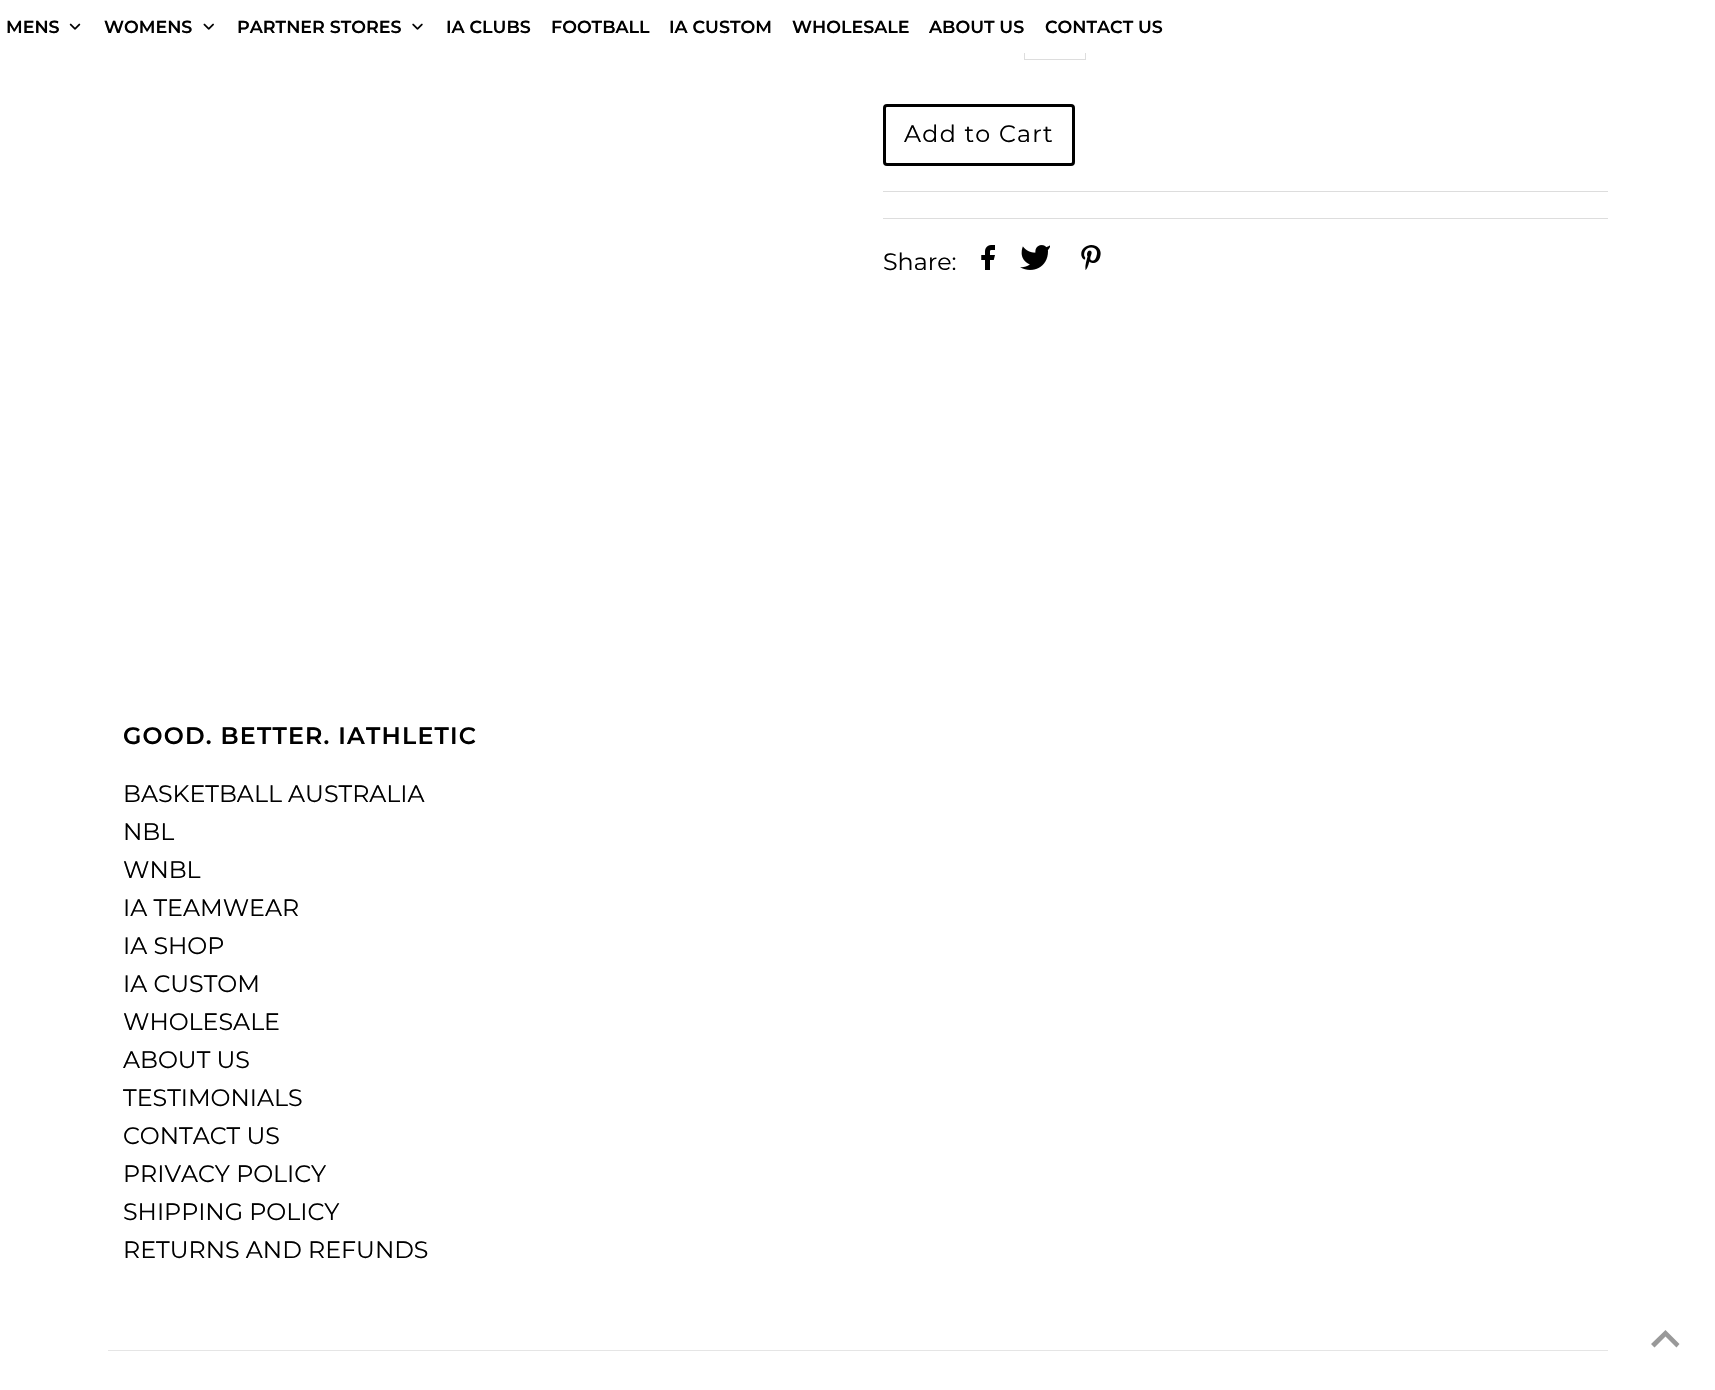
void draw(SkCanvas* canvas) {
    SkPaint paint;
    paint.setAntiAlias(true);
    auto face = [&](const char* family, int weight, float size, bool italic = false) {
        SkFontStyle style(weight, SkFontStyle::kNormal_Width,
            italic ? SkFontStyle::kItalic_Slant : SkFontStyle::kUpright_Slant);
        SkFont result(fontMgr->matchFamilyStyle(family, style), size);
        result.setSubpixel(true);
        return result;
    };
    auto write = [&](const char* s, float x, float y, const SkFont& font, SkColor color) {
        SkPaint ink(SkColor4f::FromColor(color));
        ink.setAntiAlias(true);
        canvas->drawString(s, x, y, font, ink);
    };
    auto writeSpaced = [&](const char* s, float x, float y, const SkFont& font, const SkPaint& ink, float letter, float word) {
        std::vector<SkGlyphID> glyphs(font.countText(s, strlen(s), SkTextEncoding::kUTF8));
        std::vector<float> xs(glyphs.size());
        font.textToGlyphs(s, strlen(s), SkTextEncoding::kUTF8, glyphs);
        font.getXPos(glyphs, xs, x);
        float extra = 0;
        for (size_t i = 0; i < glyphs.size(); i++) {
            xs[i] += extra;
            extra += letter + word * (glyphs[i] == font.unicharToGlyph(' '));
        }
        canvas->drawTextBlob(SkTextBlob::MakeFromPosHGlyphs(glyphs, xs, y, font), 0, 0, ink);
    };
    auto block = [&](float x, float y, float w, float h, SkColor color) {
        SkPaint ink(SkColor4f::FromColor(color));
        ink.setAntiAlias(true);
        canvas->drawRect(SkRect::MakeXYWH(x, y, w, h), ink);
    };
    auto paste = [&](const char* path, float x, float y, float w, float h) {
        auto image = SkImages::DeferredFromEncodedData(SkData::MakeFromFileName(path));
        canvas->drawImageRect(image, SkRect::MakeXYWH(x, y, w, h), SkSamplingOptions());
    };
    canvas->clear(SK_ColorWHITE);
    paint.setStyle(SkPaint::kStroke_Style);
    paint.setStrokeWidth(1);
    paint.setColor(SkColorSetRGB(221, 221, 221));
    canvas->drawRect(SkRect::MakeXYWH(1024.5f, -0.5f, 61, 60), paint);
    block(1024, 0, 62, 53, SK_ColorWHITE);
    auto kFont1 = face("Montserrat", 600, 17.5f);
    write("MENS", 6, 33, kFont1, SK_ColorBLACK);
    paste("pic1.png", 69, 23, 12, 7);
    write("WOMENS", 104, 33, kFont1, SK_ColorBLACK);
    paste("pic2.png", 203, 23, 11, 7);
    write("PARTNER STORES", 237, 33, kFont1, SK_ColorBLACK);
    paste("pic3.png", 412, 23, 11, 7);
    write("IA CLUBS", 446, 33, kFont1, SK_ColorBLACK);
    write("FOOTBALL", 551, 33, kFont1, SK_ColorBLACK);
    write("IA CUSTOM", 669, 33, kFont1, SK_ColorBLACK);
    write("WHOLESALE", 792, 33, kFont1, SK_ColorBLACK);
    write("ABOUT US", 929, 33, kFont1, SK_ColorBLACK);
    write("CONTACT US", 1045, 33, kFont1, SK_ColorBLACK);
    block(883, 191, 725, 1, SkColorSetRGB(221, 221, 221));
    paint.setStrokeWidth(3);
    paint.setColor(SK_ColorBLACK);
    canvas->drawRoundRect(SkRect::MakeXYWH(884.5f, 105.5f, 189, 59), 2.5f, 2.5f, paint);
    auto kFont2 = face("Montserrat", 100, 23.75f);
    paint.setStyle(SkPaint::kFill_Style);
    writeSpaced("Add to Cart", 904, 142, kFont2, paint, 1.25f, 0);
    block(883, 218, 725, 1, SkColorSetRGB(221, 221, 221));
    write("Share:", 883, 270, kFont2, SK_ColorBLACK);
    paste("pic4.png", 981, 245, 14, 25);
    paste("pic5.png", 1020, 245, 30, 25);
    paste("pic6.png", 1081, 245, 20, 25);
    auto kFont3 = face("Montserrat", 600, 23.75f);
    writeSpaced("GOOD. BETTER. IATHLETIC", 123, 744, kFont3, paint, 1.2f, 0);
    write("BASKETBALL AUSTRALIA", 123, 802, kFont2, SK_ColorBLACK);
    write("NBL", 123, 840, kFont2, SK_ColorBLACK);
    write("WNBL", 123, 878, kFont2, SK_ColorBLACK);
    write("IA TEAMWEAR", 123, 916, kFont2, SK_ColorBLACK);
    write("IA SHOP", 123, 954, kFont2, SK_ColorBLACK);
    write("IA CUSTOM", 123, 992, kFont2, SK_ColorBLACK);
    write("WHOLESALE", 123, 1030, kFont2, SK_ColorBLACK);
    write("ABOUT US", 123, 1068, kFont2, SK_ColorBLACK);
    write("TESTIMONIALS", 123, 1106, kFont2, SK_ColorBLACK);
    write("CONTACT US", 123, 1144, kFont2, SK_ColorBLACK);
    write("PRIVACY POLICY", 123, 1182, kFont2, SK_ColorBLACK);
    write("SHIPPING POLICY", 123, 1220, kFont2, SK_ColorBLACK);
    write("RETURNS AND REFUNDS", 123, 1258, kFont2, SK_ColorBLACK);
    block(108, 1350, 1500, 1, SkColorSetRGB(229, 229, 229));
    paint.setColor(SkColorSetRGB(153, 153, 153));
    canvas->drawPath(SkPathBuilder().moveTo(1665.5f, 1330).lineTo(1651, 1344).lineTo(1654.5f, 1347.5f).lineTo(1665.5f, 1336.5f).lineTo(1676.5f, 1347.5f).lineTo(1679.5f, 1344).close().detach(), paint);
}
